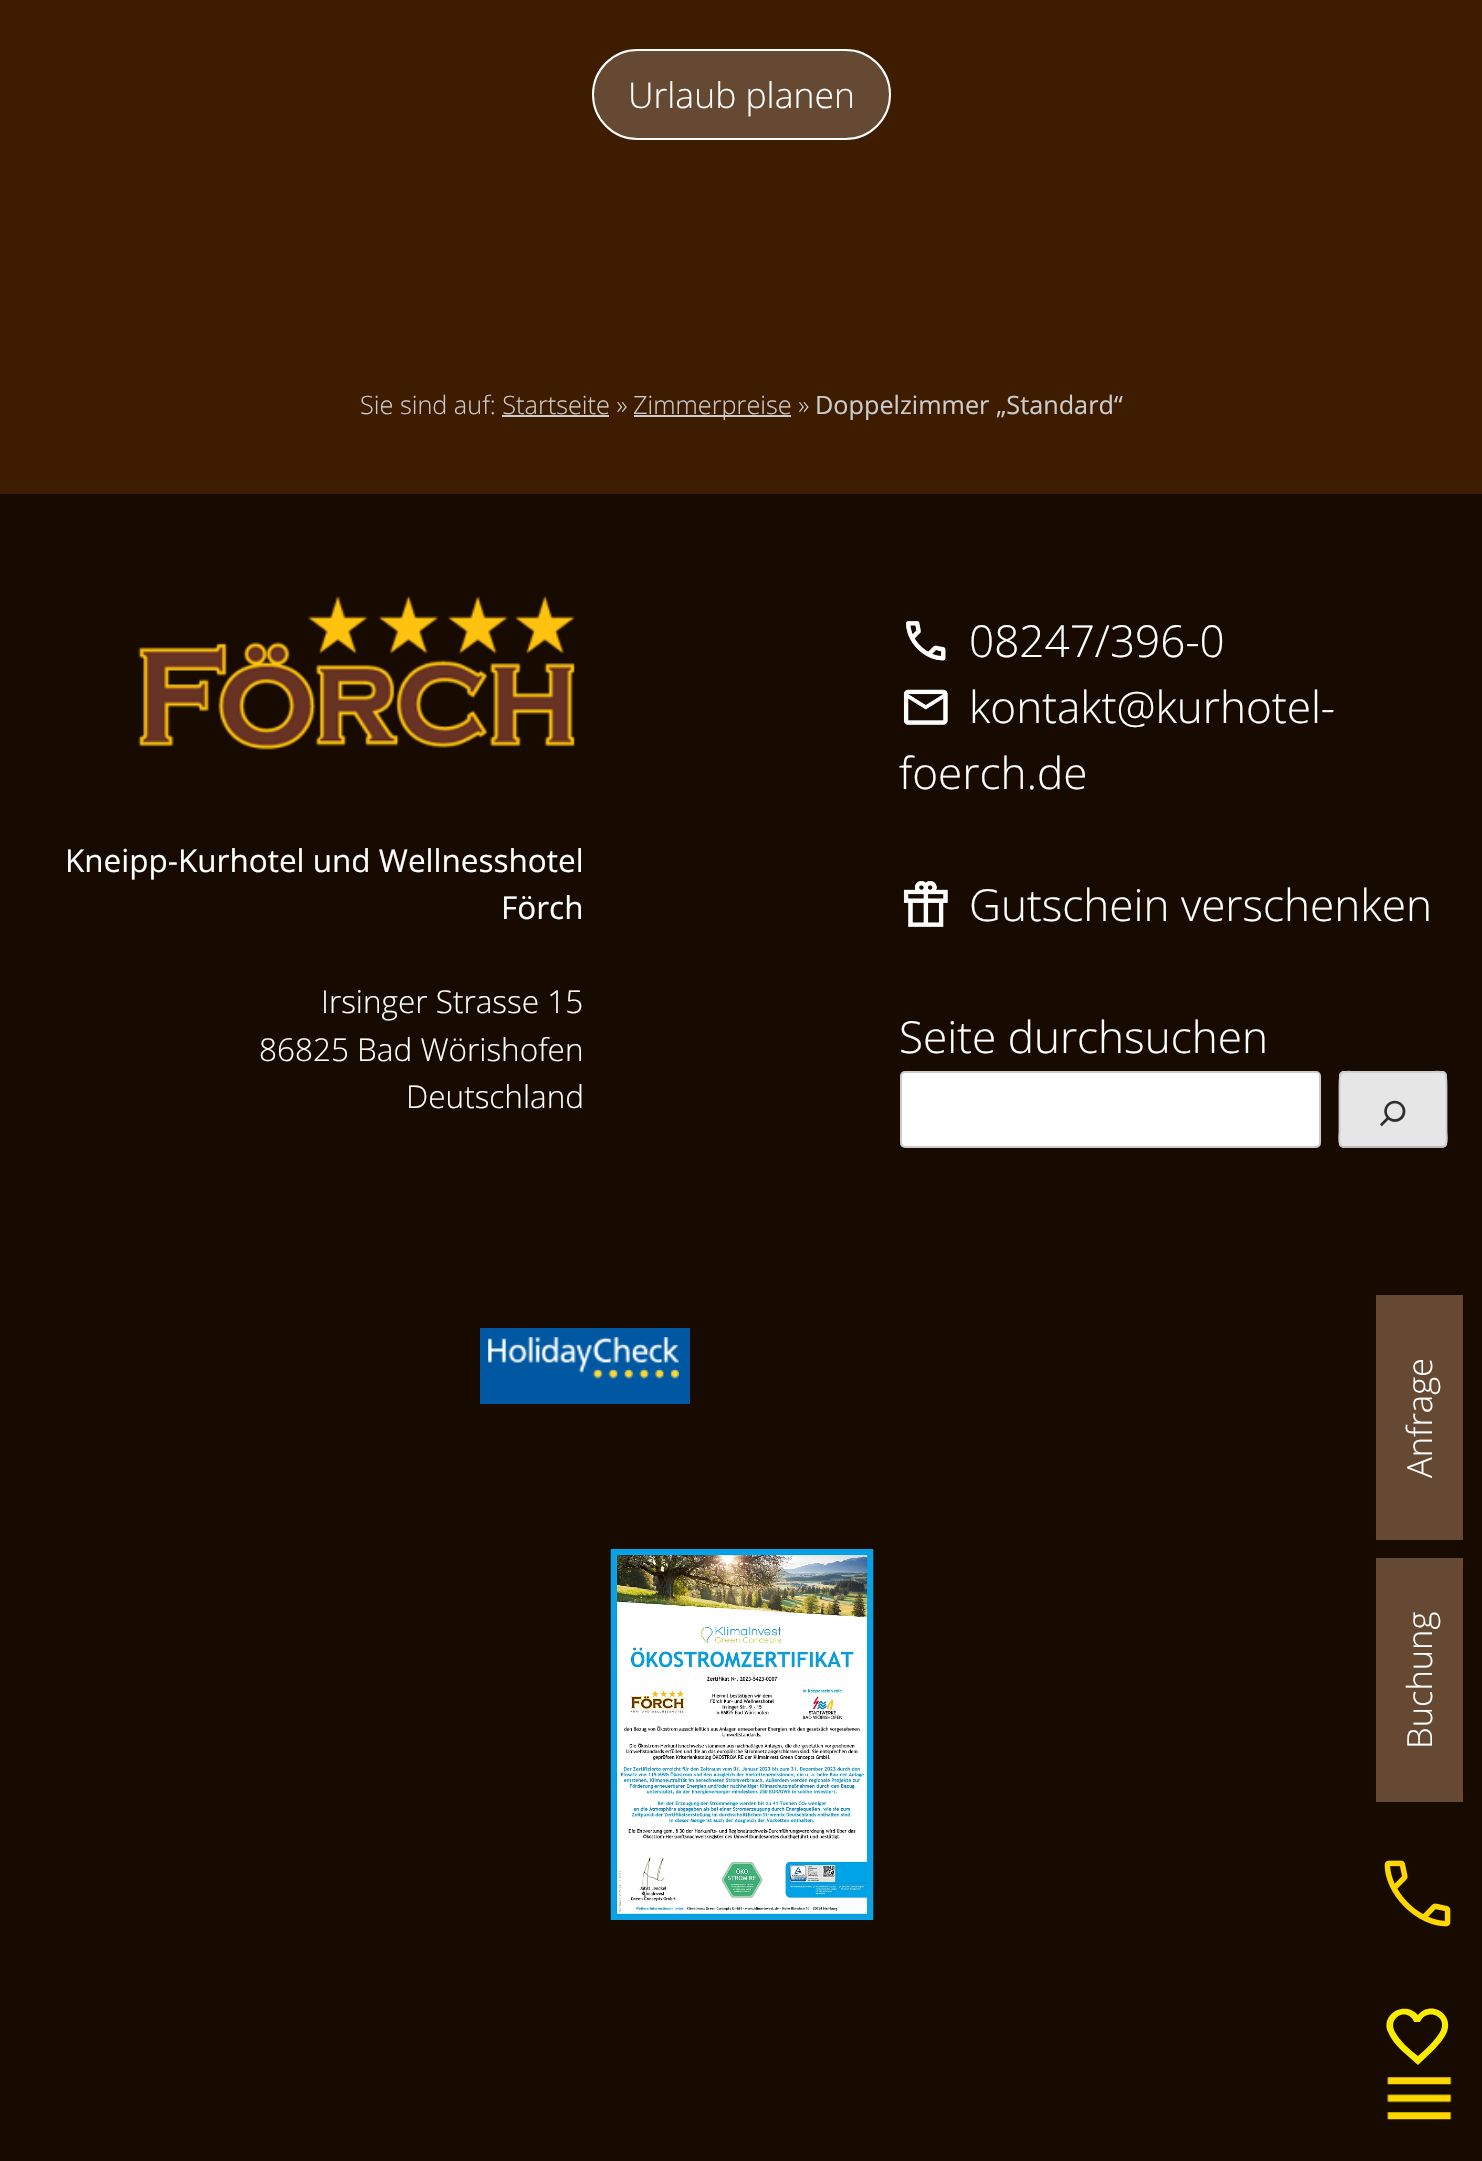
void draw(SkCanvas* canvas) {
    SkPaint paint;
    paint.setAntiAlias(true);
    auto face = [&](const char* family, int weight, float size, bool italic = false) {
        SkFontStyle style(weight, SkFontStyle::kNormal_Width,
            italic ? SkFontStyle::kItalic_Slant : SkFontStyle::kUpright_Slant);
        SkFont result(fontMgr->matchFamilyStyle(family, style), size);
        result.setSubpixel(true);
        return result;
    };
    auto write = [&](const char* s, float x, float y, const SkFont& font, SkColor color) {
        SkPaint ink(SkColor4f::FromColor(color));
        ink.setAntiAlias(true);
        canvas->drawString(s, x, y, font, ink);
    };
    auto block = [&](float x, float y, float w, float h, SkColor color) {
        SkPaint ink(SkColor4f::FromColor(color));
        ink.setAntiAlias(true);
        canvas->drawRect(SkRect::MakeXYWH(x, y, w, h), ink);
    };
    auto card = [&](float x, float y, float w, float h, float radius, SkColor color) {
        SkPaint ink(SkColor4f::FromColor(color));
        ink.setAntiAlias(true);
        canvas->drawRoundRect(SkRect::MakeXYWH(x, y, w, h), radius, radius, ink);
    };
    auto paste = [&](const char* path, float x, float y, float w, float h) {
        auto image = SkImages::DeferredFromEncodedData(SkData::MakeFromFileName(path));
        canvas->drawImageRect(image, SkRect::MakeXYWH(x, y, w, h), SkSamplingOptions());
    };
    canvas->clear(SkColorSetRGB(62, 28, 0));
    paint.setColor(SkColorSetRGB(101, 73, 51));
    canvas->drawRoundRect(SkRect::MakeXYWH(593, 50, 297, 89), 44.5f, 44.5f, paint);
    paint.setStyle(SkPaint::kStroke_Style);
    paint.setStrokeWidth(2);
    paint.setColor(SK_ColorWHITE);
    canvas->drawRoundRect(SkRect::MakeXYWH(593, 50, 297, 89), 44.5f, 44.5f, paint);
    auto kFont1 = face("Open Sans", 300, 35.5f);
    write("Urlaub planen", 628, 108, kFont1, SK_ColorWHITE);
    auto kFont2 = face("Open Sans", 300, 25.25f);
    write("Sie sind auf: Startseite »", 360, 414, kFont2, SkColorSetRGB(204, 204, 204));
    block(634, 415, 157, 2, SkColorSetRGB(204, 204, 204));
    write("Zimmerpreise »", 633, 414, kFont2, SkColorSetRGB(204, 204, 204));
    block(502, 415, 107, 2, SkColorSetRGB(204, 204, 204));
    auto kFont3 = face("Open Sans", 400, 25.25f);
    write("Doppelzimmer „Standard“", 815, 414, kFont3, SkColorSetRGB(204, 204, 204));
    block(0, 494, 1482, 1667, SkColorSetRGB(23, 10, 0));
    paste("pic1.png", 138, 596, 437, 154);
    auto kFont4 = face("Open Sans", 400, 31.5f);
    write("Kneipp-Kurhotel und Wellnesshotel", 65, 872, kFont4, SK_ColorWHITE);
    write("Förch", 501, 919, kFont4, SK_ColorWHITE);
    auto kFont5 = face("Open Sans", 300, 31.5f);
    write("Irsinger Strasse 15", 321, 1013, kFont5, SK_ColorWHITE);
    write("86825 Bad Wörishofen", 259, 1061, kFont5, SK_ColorWHITE);
    write("Deutschland", 406, 1108, kFont5, SK_ColorWHITE);
    paste("pic2.png", 906, 621, 40, 40);
    auto kFont6 = face("Open Sans", 300, 44.1f);
    write("08247/396-0", 969, 657, kFont6, SK_ColorWHITE);
    paste("pic3.png", 903, 689, 45, 36);
    write("kontakt@kurhotel-", 969, 723, kFont6, SK_ColorWHITE);
    write("foerch.de", 899, 789, kFont6, SK_ColorWHITE);
    paste("pic4.png", 903, 881, 45, 46);
    write("Gutschein verschenken", 969, 921, kFont6, SK_ColorWHITE);
    write("Seite durchsuchen", 899, 1053, kFont6, SK_ColorWHITE);
    paint.setStyle(SkPaint::kFill_Style);
    canvas->drawRoundRect(SkRect::MakeXYWH(901, 1072, 419, 75), 4, 4, paint);
    paint.setStyle(SkPaint::kStroke_Style);
    paint.setColor(SkColorSetRGB(204, 204, 204));
    canvas->drawRoundRect(SkRect::MakeXYWH(901, 1072, 419, 75), 4, 4, paint);
    card(1339, 1071, 108, 77, 5, SkColorSetRGB(230, 230, 230));
    paint.setStrokeWidth(1.8f);
    paint.setColor(SkColorSetRGB(187, 187, 187));
    canvas->drawPath(SkPathBuilder().moveTo(1445, 1146).lineTo(1442.5f, 1147).lineTo(1343.5f, 1147).lineTo(1341, 1146).detach(), paint);
    paint.setColor(SkColorSetRGB(204, 204, 204));
    canvas->drawPath(SkPathBuilder().moveTo(1341, 1146).cubicTo(1338, 1143, 1339.5f, 1132.5f, 1339.5f, 1131.5f).lineTo(1339.5f, 1087.5f).cubicTo(1339.5f, 1068, 1339, 1072, 1360.5f, 1072).lineTo(1425.5f, 1072).cubicTo(1447, 1072, 1446.5f, 1068, 1446.5f, 1087.5f).lineTo(1446.5f, 1131.5f).cubicTo(1446.5f, 1132.5f, 1448, 1143, 1445, 1146).detach(), paint);
    paste("pic5.png", 1380, 1100, 26, 27);
    block(480, 1328, 210, 76, SkColorSetRGB(0, 88, 162));
    paste("pic6.png", 488, 1337, 191, 42);
    paste("pic7.png", 610, 1549, 264, 371);
    paste("pic8.png", 1387, 2077, 65, 43);
    block(1376, 1295, 87, 245, SkColorSetRGB(101, 73, 51));
    auto kFont7 = face("Open Sans", 300, 34.5f);
    canvas->save();
    canvas->rotate(-90, 1432, 1478);
    write("Anfrage", 1432, 1478, kFont7, SK_ColorWHITE);
    canvas->restore();
    block(1376, 1558, 87, 244, SkColorSetRGB(101, 73, 51));
    canvas->save();
    canvas->rotate(-90, 1432, 1749);
    write("Buchung", 1432, 1749, kFont7, SK_ColorWHITE);
    canvas->restore();
    paste("pic9.png", 1384, 1860, 67, 67);
    paint.setStyle(SkPaint::kFill_Style);
    paint.setColor(SkColorSetRGB(249, 236, 3));
    canvas->drawPath(SkPathBuilder().moveTo(1418, 2065).cubicTo(1407, 2055, 1394, 2046, 1388, 2032).cubicTo(1380, 2014, 1405, 2000, 1418, 2015).cubicTo(1430, 2000, 1454, 2013, 1447, 2032).cubicTo(1442, 2044, 1427, 2056, 1418, 2065).close().moveTo(1418, 2056).cubicTo(1425, 2050, 1437, 2039, 1441, 2030).cubicTo(1447, 2015, 1426, 2008, 1420, 2022).lineTo(1414, 2022).cubicTo(1408, 2007, 1387, 2017, 1395, 2032).cubicTo(1399, 2040, 1411, 2051, 1418, 2056).close().detach(), paint);
}
